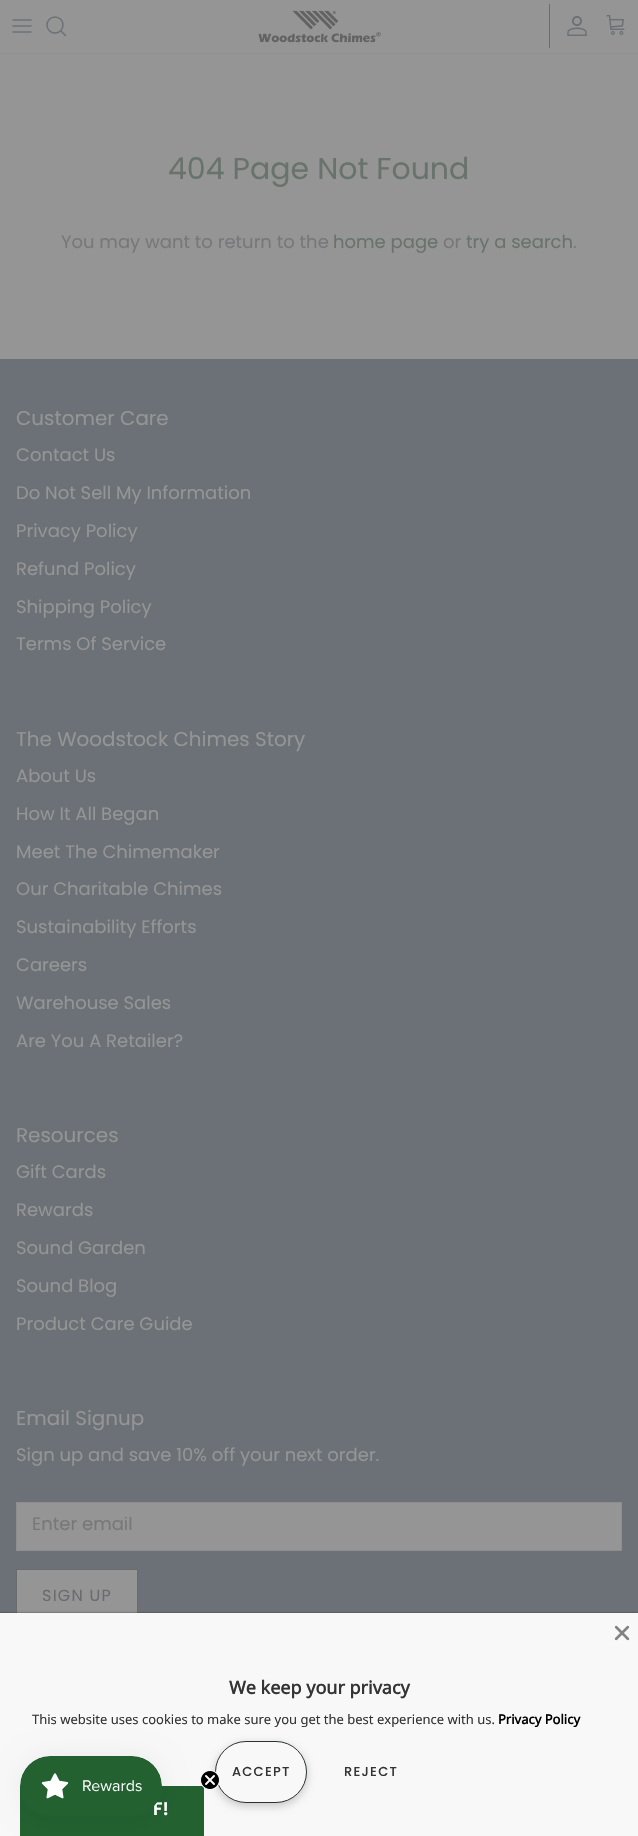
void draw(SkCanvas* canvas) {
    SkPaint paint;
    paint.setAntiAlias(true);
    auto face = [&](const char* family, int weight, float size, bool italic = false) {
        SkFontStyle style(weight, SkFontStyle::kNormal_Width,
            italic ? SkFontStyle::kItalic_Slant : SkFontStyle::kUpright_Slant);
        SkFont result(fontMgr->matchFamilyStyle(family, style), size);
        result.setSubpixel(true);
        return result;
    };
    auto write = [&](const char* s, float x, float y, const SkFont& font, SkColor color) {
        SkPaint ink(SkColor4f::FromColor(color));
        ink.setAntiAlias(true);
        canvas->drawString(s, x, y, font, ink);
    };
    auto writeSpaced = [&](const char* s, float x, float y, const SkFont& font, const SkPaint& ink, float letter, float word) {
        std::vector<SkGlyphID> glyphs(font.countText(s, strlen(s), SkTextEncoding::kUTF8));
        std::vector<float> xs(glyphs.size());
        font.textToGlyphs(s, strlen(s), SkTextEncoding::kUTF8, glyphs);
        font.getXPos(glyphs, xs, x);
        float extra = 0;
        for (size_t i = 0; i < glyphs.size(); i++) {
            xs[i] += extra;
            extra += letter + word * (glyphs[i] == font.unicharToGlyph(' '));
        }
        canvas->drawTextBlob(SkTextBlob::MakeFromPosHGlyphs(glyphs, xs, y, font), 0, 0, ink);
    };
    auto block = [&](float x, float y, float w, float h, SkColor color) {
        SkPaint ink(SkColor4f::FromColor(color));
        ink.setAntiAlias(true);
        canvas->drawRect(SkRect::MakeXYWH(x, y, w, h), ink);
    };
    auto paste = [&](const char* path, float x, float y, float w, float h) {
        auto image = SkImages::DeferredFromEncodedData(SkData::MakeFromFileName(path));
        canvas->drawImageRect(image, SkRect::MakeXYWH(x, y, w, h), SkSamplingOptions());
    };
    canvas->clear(SkColorSetRGB(149, 149, 149));
    block(0, 53, 638, 1, SkColorSetRGB(143, 144, 145));
    paste("pic1.png", 12, 19, 20, 14);
    paint.setStyle(SkPaint::kStroke_Style);
    paint.setStrokeWidth(1.5f);
    paint.setColor(SkColorSetRGB(107, 113, 118));
    canvas->drawCircle(55, 25, 8, paint);
    paint.setStrokeCap(SkPaint::kSquare_Cap);
    canvas->drawPath(SkPathBuilder().moveTo(61, 31).lineTo(65.5f, 35.5f).detach(), paint);
    paste("pic2.png", 258, 10, 123, 33);
    block(549, 4, 1, 44, SkColorSetRGB(109, 109, 109));
    paste("pic3.png", 567, 16, 20, 20);
    paste("pic4.png", 606, 15, 19, 20);
    auto kFont1 = face("Poppins", 400, 30);
    write("404 Page Not Found", 168, 179, kFont1, SkColorSetRGB(104, 115, 107));
    auto kFont2 = face("Poppins", 400, 18);
    write("You may want to return to the", 61, 248, kFont2, SkColorSetRGB(120, 120, 122));
    write("home page", 333, 248, kFont2, SkColorSetRGB(104, 115, 107));
    write("or", 443, 248, kFont2, SkColorSetRGB(120, 120, 122));
    write("try a search", 466, 248, kFont2, SkColorSetRGB(104, 115, 107));
    write(".", 573, 248, kFont2, SkColorSetRGB(120, 120, 122));
    block(0, 359, 638, 1254, SkColorSetRGB(107, 113, 118));
    auto kFont3 = face("Poppins", 400, 19.9f);
    write("Customer Care", 16, 425, kFont3, SkColorSetRGB(149, 149, 149));
    write("Contact Us", 16, 461, kFont2, SkColorSetRGB(149, 149, 149));
    write("Do Not Sell My Information", 16, 499, kFont2, SkColorSetRGB(149, 149, 149));
    write("Privacy Policy", 16, 537, kFont2, SkColorSetRGB(149, 149, 149));
    write("Refund Policy", 16, 575, kFont2, SkColorSetRGB(149, 149, 149));
    write("Shipping Policy", 16, 613, kFont2, SkColorSetRGB(149, 149, 149));
    write("Terms Of Service", 16, 650, kFont2, SkColorSetRGB(149, 149, 149));
    write("The Woodstock Chimes Story", 16, 746, kFont3, SkColorSetRGB(149, 149, 149));
    write("About Us", 16, 782, kFont2, SkColorSetRGB(149, 149, 149));
    write("How It All Began", 16, 820, kFont2, SkColorSetRGB(149, 149, 149));
    write("Meet The Chimemaker", 16, 858, kFont2, SkColorSetRGB(149, 149, 149));
    write("Our Charitable Chimes", 16, 895, kFont2, SkColorSetRGB(149, 149, 149));
    write("Sustainability Efforts", 16, 933, kFont2, SkColorSetRGB(149, 149, 149));
    write("Careers", 16, 971, kFont2, SkColorSetRGB(149, 149, 149));
    write("Warehouse Sales", 16, 1009, kFont2, SkColorSetRGB(149, 149, 149));
    write("Are You A Retailer?", 16, 1047, kFont2, SkColorSetRGB(149, 149, 149));
    write("Resources", 16, 1142, kFont3, SkColorSetRGB(149, 149, 149));
    write("Gift Cards", 16, 1178, kFont2, SkColorSetRGB(149, 149, 149));
    write("Rewards", 16, 1216, kFont2, SkColorSetRGB(149, 149, 149));
    write("Sound Garden", 16, 1254, kFont2, SkColorSetRGB(149, 149, 149));
    write("Sound Blog", 16, 1292, kFont2, SkColorSetRGB(149, 149, 149));
    write("Product Care Guide", 16, 1330, kFont2, SkColorSetRGB(149, 149, 149));
    write("Email Signup", 16, 1425, kFont3, SkColorSetRGB(149, 149, 149));
    write("Sign up and save 10% off your next order.", 16, 1461, kFont2, SkColorSetRGB(149, 149, 149));
    paint.setStyle(SkPaint::kFill_Style);
    paint.setColor(SkColorSetRGB(149, 149, 149));
    canvas->drawRect(SkRect::MakeXYWH(16.5f, 1502.5f, 605, 48), paint);
    paint.setStyle(SkPaint::kStroke_Style);
    paint.setStrokeWidth(1);
    paint.setStrokeCap(SkPaint::kButt_Cap);
    paint.setColor(SkColorSetRGB(142, 142, 142));
    canvas->drawRect(SkRect::MakeXYWH(16.5f, 1502.5f, 605, 48), paint);
    canvas->save();
    canvas->clipRect(SkRect::MakeXYWH(32, 1517, 574, 18));
    write("Enter email", 32, 1530, kFont2, SkColorSetRGB(120, 120, 122));
    canvas->restore();
    block(17, 1570, 120, 43, SkColorSetRGB(149, 149, 149));
    paint.setColor(SkColorSetRGB(105, 107, 109));
    canvas->drawRect(SkRect::MakeXYWH(16.5f, 1569.5f, 121, 55), paint);
    auto kFont4 = face("Poppins", 400, 16);
    paint.setStyle(SkPaint::kFill_Style);
    writeSpaced("SIGN UP", 42, 1601, kFont4, paint, 1.25f, 0);
    paint.setColor(SkColorSetARGB(128, 0, 0, 0));
    paint.setMaskFilter(SkMaskFilter::MakeBlur(kNormal_SkBlurStyle, 1));
    canvas->drawRect(SkRect::MakeXYWH(0, 1613, 638, 223), paint);
    paint.setMaskFilter(nullptr);
    block(0, 1613, 638, 223, SkColorSetRGB(248, 248, 248));
    paste("pic5.png", 614, 1625, 16, 16);
    auto kFont5 = face("Noto Sans", 700, 18);
    write("We keep your privacy", 229, 1694, kFont5, SkColorSetRGB(52, 52, 52));
    auto kFont6 = face("Noto Sans", 400, 13);
    write("This website uses cookies to make sure you get the best experience with us.", 32, 1724, kFont6, SkColorSetRGB(52, 52, 52));
    auto kFont7 = face("Noto Sans", 700, 13);
    write("Privacy Policy", 498, 1724, kFont7, SK_ColorBLACK);
    paint.setColor(SkColorSetARGB(51, 0, 0, 0));
    paint.setMaskFilter(SkMaskFilter::MakeBlur(kNormal_SkBlurStyle, 4));
    canvas->drawRoundRect(SkRect::MakeXYWH(215, 1744, 92, 62), 31, 31, paint);
    paint.setMaskFilter(nullptr);
    paint.setColor(SkColorSetRGB(248, 248, 248));
    canvas->drawRoundRect(SkRect::MakeXYWH(215.5f, 1741.5f, 91, 61), 30.5f, 30.5f, paint);
    paint.setStyle(SkPaint::kStroke_Style);
    paint.setColor(SkColorSetRGB(44, 51, 47));
    canvas->drawRoundRect(SkRect::MakeXYWH(215.5f, 1741.5f, 91, 61), 30.5f, 30.5f, paint);
    auto kFont8 = face("Poppins", 500, 13);
    paint.setStyle(SkPaint::kFill_Style);
    paint.setColor(SkColorSetRGB(52, 52, 52));
    writeSpaced("ACCEPT", 232, 1776, kFont8, paint, 1.25f, 0);
    writeSpaced("REJECT", 344, 1776, kFont8, paint, 1.25f, 0);
    paint.setColor(SkColorSetRGB(35, 97, 49));
    canvas->drawPath(SkPathBuilder().moveTo(21, 1786).lineTo(203, 1786).cubicTo(203.5f, 1786, 204, 1786.5f, 204, 1787).lineTo(204, 1836).lineTo(20, 1836).lineTo(20, 1787).cubicTo(20, 1786.5f, 20.5f, 1786, 21, 1786).close().detach(), paint);
    paste("pic7.png", 200, 1770, 20, 20);
    paint.setColor(SkColorSetARGB(13, 0, 0, 0));
    paint.setMaskFilter(SkMaskFilter::MakeBlur(kNormal_SkBlurStyle, 12.5f));
    canvas->drawRoundRect(SkRect::MakeXYWH(20, 1756, 142, 60), 30, 30, paint);
    paint.setMaskFilter(nullptr);
    auto kFont9 = face("Poppins", 600, 18);
    write("F!", 153, 1815, kFont9, SK_ColorWHITE);
    paste("pic6.png", 20, 1756, 142, 60);
}
